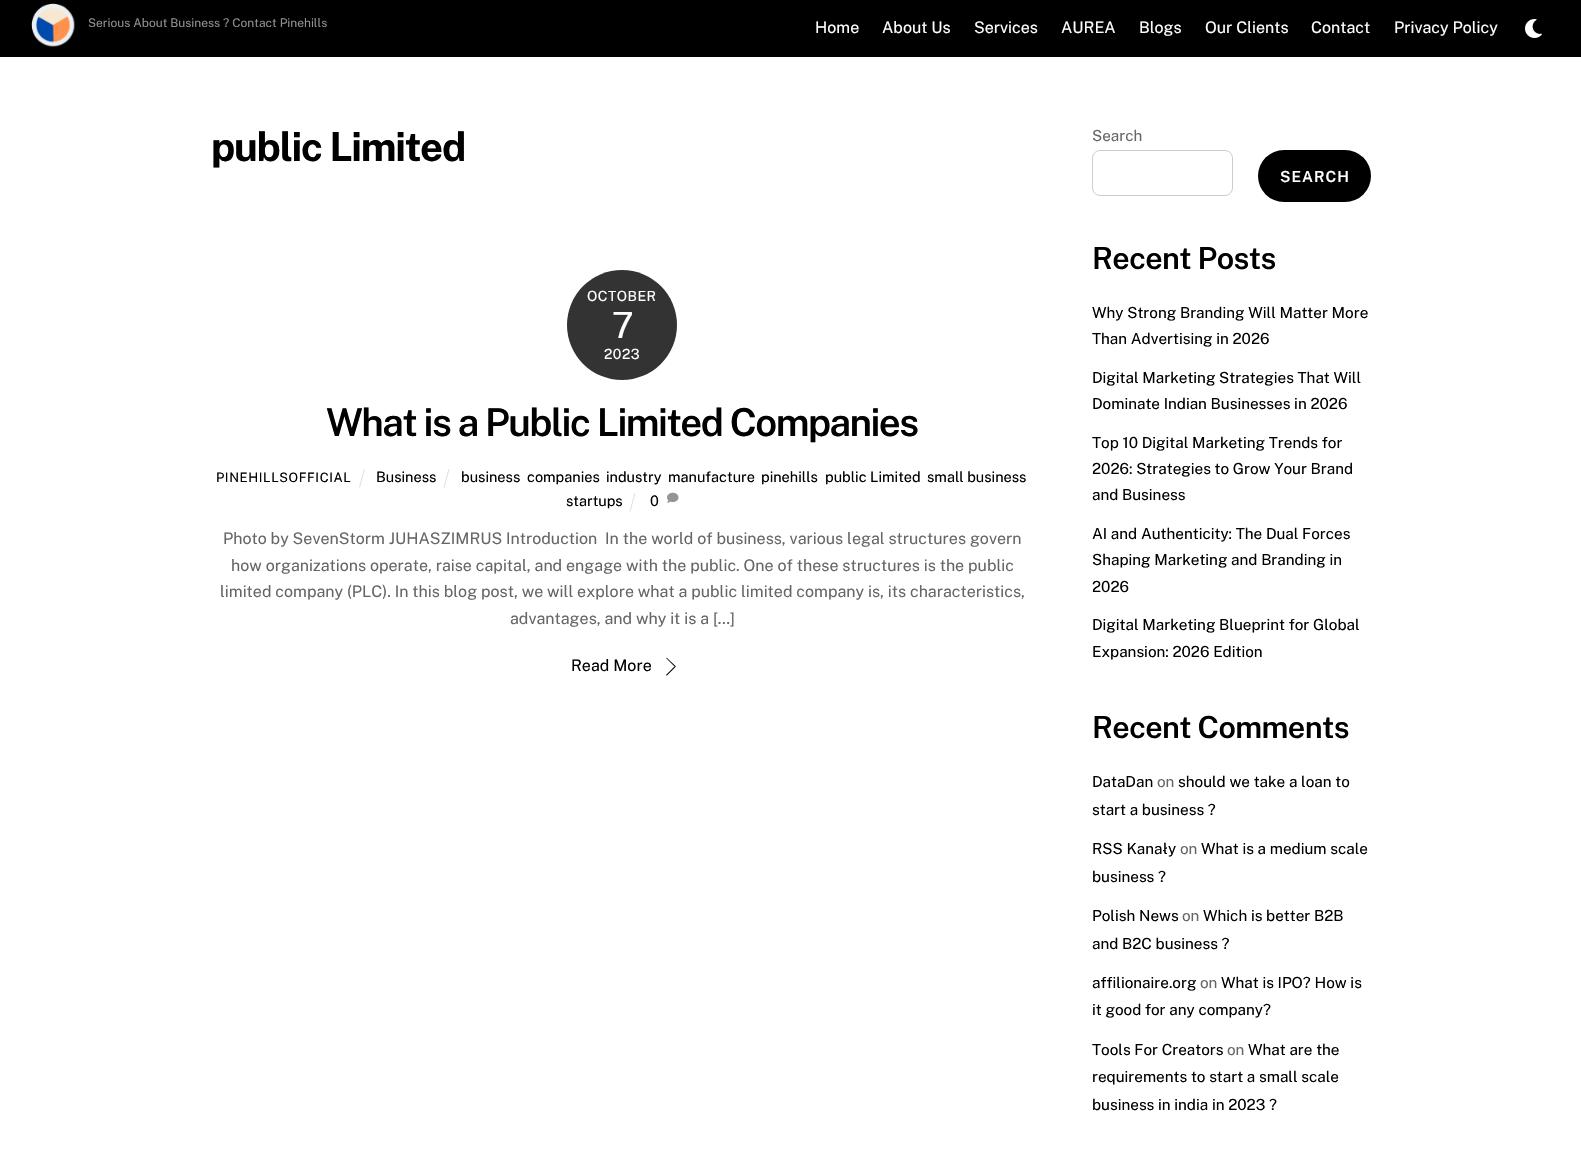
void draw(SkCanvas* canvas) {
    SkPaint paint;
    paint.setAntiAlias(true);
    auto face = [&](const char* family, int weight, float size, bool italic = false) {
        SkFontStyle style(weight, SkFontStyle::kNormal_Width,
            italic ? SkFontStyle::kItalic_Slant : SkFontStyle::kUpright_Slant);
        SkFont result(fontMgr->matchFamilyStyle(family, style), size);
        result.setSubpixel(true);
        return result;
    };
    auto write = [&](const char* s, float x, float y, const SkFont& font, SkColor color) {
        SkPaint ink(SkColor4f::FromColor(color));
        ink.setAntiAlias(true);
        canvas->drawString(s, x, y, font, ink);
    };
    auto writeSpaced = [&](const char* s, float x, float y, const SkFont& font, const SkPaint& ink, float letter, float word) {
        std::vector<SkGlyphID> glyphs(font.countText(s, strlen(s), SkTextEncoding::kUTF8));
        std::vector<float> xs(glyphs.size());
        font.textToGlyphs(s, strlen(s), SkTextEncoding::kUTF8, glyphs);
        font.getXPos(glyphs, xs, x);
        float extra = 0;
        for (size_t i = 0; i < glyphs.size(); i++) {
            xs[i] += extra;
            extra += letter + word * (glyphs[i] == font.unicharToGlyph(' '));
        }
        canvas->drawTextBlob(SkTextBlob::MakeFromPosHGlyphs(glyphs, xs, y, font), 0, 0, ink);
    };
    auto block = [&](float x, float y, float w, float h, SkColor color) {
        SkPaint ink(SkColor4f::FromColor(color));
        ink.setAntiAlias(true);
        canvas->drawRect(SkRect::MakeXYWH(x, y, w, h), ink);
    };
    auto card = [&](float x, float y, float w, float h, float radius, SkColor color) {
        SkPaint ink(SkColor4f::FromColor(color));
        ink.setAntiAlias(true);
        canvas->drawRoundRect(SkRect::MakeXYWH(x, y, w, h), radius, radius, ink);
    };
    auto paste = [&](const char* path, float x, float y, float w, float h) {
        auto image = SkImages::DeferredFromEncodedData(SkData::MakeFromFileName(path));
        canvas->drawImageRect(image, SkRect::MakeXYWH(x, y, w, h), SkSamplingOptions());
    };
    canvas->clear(SK_ColorWHITE);
    block(0, 0, 1581, 57, SK_ColorBLACK);
    paste("pic1.png", 31, 3, 44, 44);
    auto kFont1 = face("Public Sans", 400, 12);
    write("Serious About Business ? Contact Pinehills", 88, 27, kFont1, SkColorSetRGB(143, 143, 143));
    auto kFont2 = face("Public Sans", 400, 16);
    write("Home", 815, 33, kFont2, SK_ColorWHITE);
    write("About Us", 882, 33, kFont2, SK_ColorWHITE);
    write("Services", 974, 33, kFont2, SK_ColorWHITE);
    write("AUREA", 1061, 33, kFont2, SK_ColorWHITE);
    write("Blogs", 1139, 33, kFont2, SK_ColorWHITE);
    write("Our Clients", 1205, 33, kFont2, SK_ColorWHITE);
    write("Contact", 1311, 33, kFont2, SK_ColorWHITE);
    write("Privacy Policy", 1394, 33, kFont2, SK_ColorWHITE);
    paste("pic2.png", 1525, 19, 17, 19);
    auto kFont3 = face("Public Sans", 700, 40);
    paint.setColor(SK_ColorBLACK);
    writeSpaced("public Limited", 211, 161, kFont3, paint, -1.25f, 0);
    paint.setColor(SkColorSetRGB(51, 51, 51));
    canvas->drawCircle(622, 325, 55, paint);
    auto kFont4 = face("Public Sans", 400, 14);
    paint.setColor(SK_ColorWHITE);
    writeSpaced("OCTOBER", 587, 301, kFont4, paint, 0.5f, 0);
    auto kFont5 = face("Public Sans", 400, 36);
    writeSpaced("7", 612, 338, kFont5, paint, -2, 0);
    writeSpaced("2023", 604, 359, kFont4, paint, 0.5f, 0);
    auto kFont6 = face("Public Sans", 600, 38.4f);
    paint.setColor(SK_ColorBLACK);
    writeSpaced("What is a Public Limited Companies", 326, 436, kFont6, paint, -1.55f, 0);
    auto kFont7 = face("Public Sans", 400, 13);
    writeSpaced("PINEHILLSOFFICIAL", 216, 482, kFont7, paint, 0.6f, 0);
    paint.setColor(SkColorSetRGB(224, 224, 224));
    canvas->drawPath(SkPathBuilder().moveTo(364, 469).lineTo(365, 469).lineTo(360, 487.5f).lineTo(359, 487.5f).close().detach(), paint);
    auto kFont8 = face("Public Sans", 400, 14.5f);
    write("Business", 376, 482, kFont8, SK_ColorBLACK);
    canvas->drawPath(SkPathBuilder().moveTo(448.5f, 469).lineTo(449.5f, 469).lineTo(444.5f, 487.5f).lineTo(443.5f, 487.5f).close().detach(), paint);
    write("business", 461, 482, kFont8, SK_ColorBLACK);
    write("companies", 527, 482, kFont8, SK_ColorBLACK);
    write("industry", 606, 482, kFont8, SK_ColorBLACK);
    write("manufacture", 668, 482, kFont8, SK_ColorBLACK);
    write("pinehills", 761, 482, kFont8, SK_ColorBLACK);
    write("public Limited", 825, 482, kFont8, SK_ColorBLACK);
    write("small business", 927, 482, kFont8, SK_ColorBLACK);
    write("startups", 566, 506, kFont8, SK_ColorBLACK);
    canvas->drawPath(SkPathBuilder().moveTo(634.5f, 493).lineTo(635.5f, 493).lineTo(630.5f, 511.5f).lineTo(629.5f, 511.5f).close().detach(), paint);
    write("0", 650, 506, kFont8, SK_ColorBLACK);
    paste("pic3.png", 667, 492, 12, 11);
    write("Photo by SevenStorm JUHASZIMRUS Introduction  In the world of business, various legal structures govern", 223, 544, kFont2, SkColorSetRGB(102, 102, 102));
    write("how organizations operate, raise capital, and engage with the public. One of these structures is the public", 231, 571, kFont2, SkColorSetRGB(102, 102, 102));
    write("limited company (PLC). In this blog post, we will explore what a public limited company is, its characteristics,", 220, 597, kFont2, SkColorSetRGB(102, 102, 102));
    write("advantages, and why it is a […]", 510, 624, kFont2, SkColorSetRGB(102, 102, 102));
    write("Read More", 571, 671, kFont2, SK_ColorBLACK);
    paint.setColor(SK_ColorBLACK);
    canvas->drawPath(SkPathBuilder().moveTo(666.5f, 657.5f).lineTo(676, 666.5f).lineTo(674.5f, 666.5f).lineTo(666.5f, 658.5f).close().detach(), paint);
    canvas->drawPath(SkPathBuilder().moveTo(676, 666.5f).lineTo(666.5f, 676).lineTo(666.5f, 674.5f).lineTo(674.5f, 666.5f).close().detach(), paint);
    auto kFont9 = face("Public Sans", 400, 15.25f);
    write("Search", 1092, 141, kFont9, SkColorSetRGB(102, 102, 102));
    paint.setStyle(SkPaint::kStroke_Style);
    paint.setStrokeWidth(1);
    paint.setColor(SkColorSetRGB(204, 204, 204));
    canvas->drawRoundRect(SkRect::MakeXYWH(1092.5f, 150.5f, 140, 45), 7.5f, 7.5f, paint);
    card(1258, 150, 113, 52, 26, SK_ColorBLACK);
    auto kFont10 = face("Public Sans", 600, 15.25f);
    paint.setStyle(SkPaint::kFill_Style);
    paint.setColor(SK_ColorWHITE);
    writeSpaced("SEARCH", 1280, 182, kFont10, paint, 1, 0);
    auto kFont11 = face("Public Sans", 600, 30.5f);
    paint.setColor(SK_ColorBLACK);
    writeSpaced("Recent Posts", 1092, 269, kFont11, paint, -0.6f, 0);
    write("Why Strong Branding Will Matter More", 1092, 318, kFont9, SK_ColorBLACK);
    write("Than Advertising in 2026", 1092, 344, kFont9, SK_ColorBLACK);
    write("Digital Marketing Strategies That Will", 1092, 383, kFont9, SK_ColorBLACK);
    write("Dominate Indian Businesses in 2026", 1092, 409, kFont9, SK_ColorBLACK);
    write("Top 10 Digital Marketing Trends for", 1092, 448, kFont9, SK_ColorBLACK);
    write("2026: Strategies to Grow Your Brand", 1092, 474, kFont9, SK_ColorBLACK);
    write("and Business", 1092, 500, kFont9, SK_ColorBLACK);
    write("AI and Authenticity: The Dual Forces", 1092, 539, kFont9, SK_ColorBLACK);
    write("Shaping Marketing and Branding in", 1092, 565, kFont9, SK_ColorBLACK);
    write("2026", 1092, 592, kFont9, SK_ColorBLACK);
    write("Digital Marketing Blueprint for Global", 1092, 630, kFont9, SK_ColorBLACK);
    write("Expansion: 2026 Edition", 1092, 657, kFont9, SK_ColorBLACK);
    writeSpaced("Recent Comments", 1092, 738, kFont11, paint, -0.6f, 0);
    write("DataDan", 1092, 787, kFont9, SK_ColorBLACK);
    write("on", 1157, 787, kFont9, SkColorSetRGB(102, 102, 102));
    write("should we take a loan to", 1178, 787, kFont9, SK_ColorBLACK);
    write("start a business ?", 1092, 815, kFont9, SK_ColorBLACK);
    write("RSS Kanały", 1092, 854, kFont9, SK_ColorBLACK);
    write("on", 1180, 854, kFont9, SkColorSetRGB(102, 102, 102));
    write("What is a medium scale", 1201, 854, kFont9, SK_ColorBLACK);
    write("business ?", 1092, 882, kFont9, SK_ColorBLACK);
    write("Polish News", 1092, 921, kFont9, SK_ColorBLACK);
    write("on", 1182, 921, kFont9, SkColorSetRGB(102, 102, 102));
    write("Which is better B2B", 1203, 921, kFont9, SK_ColorBLACK);
    write("and B2C business ?", 1092, 949, kFont9, SK_ColorBLACK);
    write("affilionaire.org", 1092, 988, kFont9, SK_ColorBLACK);
    write("on", 1200, 988, kFont9, SkColorSetRGB(102, 102, 102));
    write("What is IPO? How is", 1221, 988, kFont9, SK_ColorBLACK);
    write("it good for any company?", 1092, 1015, kFont9, SK_ColorBLACK);
    write("Tools For Creators", 1092, 1055, kFont9, SK_ColorBLACK);
    write("on", 1227, 1055, kFont9, SkColorSetRGB(102, 102, 102));
    write("What are the", 1248, 1055, kFont9, SK_ColorBLACK);
    write("requirements to start a small scale", 1092, 1082, kFont9, SK_ColorBLACK);
    write("business in india in 2023 ?", 1092, 1110, kFont9, SK_ColorBLACK);
}
